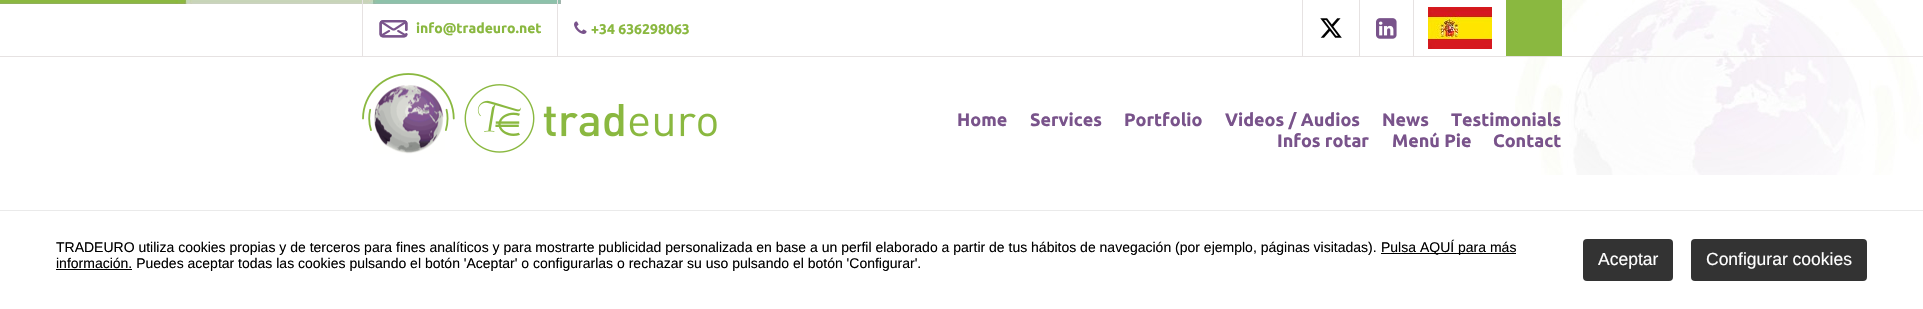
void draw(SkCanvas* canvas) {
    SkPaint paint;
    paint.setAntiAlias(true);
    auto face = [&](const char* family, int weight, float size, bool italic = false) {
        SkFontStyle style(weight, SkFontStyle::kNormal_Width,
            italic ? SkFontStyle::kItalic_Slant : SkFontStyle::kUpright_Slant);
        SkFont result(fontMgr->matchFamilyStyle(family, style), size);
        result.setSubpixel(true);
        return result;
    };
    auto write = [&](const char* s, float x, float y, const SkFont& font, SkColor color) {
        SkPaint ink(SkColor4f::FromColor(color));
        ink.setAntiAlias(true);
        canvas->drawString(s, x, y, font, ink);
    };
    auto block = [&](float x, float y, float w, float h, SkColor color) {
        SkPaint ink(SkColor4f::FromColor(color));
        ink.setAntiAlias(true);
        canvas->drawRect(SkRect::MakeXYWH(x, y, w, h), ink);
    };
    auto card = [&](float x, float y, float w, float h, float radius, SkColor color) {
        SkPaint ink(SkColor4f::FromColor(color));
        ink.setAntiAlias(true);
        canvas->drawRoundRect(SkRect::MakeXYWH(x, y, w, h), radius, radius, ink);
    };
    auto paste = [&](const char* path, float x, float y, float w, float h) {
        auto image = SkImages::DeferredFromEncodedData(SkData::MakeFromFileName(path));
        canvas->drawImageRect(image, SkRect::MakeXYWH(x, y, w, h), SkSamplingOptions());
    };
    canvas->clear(SK_ColorWHITE);
    paste("pic1.png", 1515, 0, 408, 175);
    paste("pic2.png", 0, 0, 561, 4);
    block(0, 56, 1923, 1, SkColorSetRGB(230, 226, 226));
    block(362, 0, 1, 56, SkColorSetRGB(230, 226, 226));
    paste("pic3.png", 379, 20, 29, 18);
    auto kFont1 = face("Ubuntu", 700, 14);
    write("info@tradeuro.net", 416, 33, kFont1, SkColorSetRGB(138, 184, 64));
    block(557, 0, 1, 56, SkColorSetRGB(230, 226, 226));
    paste("pic4.png", 574, 21, 13, 13);
    write("+34 636298063", 591, 34, kFont1, SkColorSetRGB(138, 184, 64));
    block(1302, 0, 1, 56, SkColorSetRGB(230, 226, 226));
    paste("pic5.png", 1320, 18, 22, 20);
    block(1359, 0, 1, 56, SkColorSetRGB(230, 226, 226));
    paste("pic6.png", 1376, 18, 21, 21);
    block(1413, 0, 1, 56, SkColorSetRGB(230, 226, 226));
    paste("pic7.png", 1428, 7, 64, 42);
    block(1506, 0, 56, 56, SkColorSetRGB(138, 184, 64));
    paste("pic8.png", 362, 73, 355, 81);
    auto kFont2 = face("Ubuntu", 700, 18);
    write("Home", 957, 126, kFont2, SkColorSetRGB(121, 83, 139));
    write("Services", 1030, 126, kFont2, SkColorSetRGB(121, 83, 139));
    write("Portfolio", 1124, 126, kFont2, SkColorSetRGB(121, 83, 139));
    write("Videos / Audios", 1225, 126, kFont2, SkColorSetRGB(121, 83, 139));
    write("News", 1382, 126, kFont2, SkColorSetRGB(121, 83, 139));
    write("Testimonials", 1451, 126, kFont2, SkColorSetRGB(121, 83, 139));
    write("Infos rotar", 1277, 147, kFont2, SkColorSetRGB(121, 83, 139));
    write("Menú Pie", 1392, 147, kFont2, SkColorSetRGB(121, 83, 139));
    write("Contact", 1493, 147, kFont2, SkColorSetRGB(121, 83, 139));
    block(0, 210, 1923, 1, SkColorSetRGB(234, 234, 234));
    auto kFont3 = face("Liberation Sans", 400, 14);
    write("TRADEURO utiliza cookies propias y de terceros para fines analíticos y para mostrarte publicidad personalizada en base a un perfil elaborado a partir de tus hábitos de navegación (por ejemplo, páginas visitadas).", 56, 252, kFont3, SK_ColorBLACK);
    block(1381, 253, 135, 1, SK_ColorBLACK);
    write("Pulsa AQUÍ para más", 1381, 252, kFont3, SK_ColorBLACK);
    block(56, 269, 76, 1, SK_ColorBLACK);
    write("información. Puedes aceptar todas las cookies pulsando el botón 'Aceptar' o configurarlas o rechazar su uso pulsando el botón 'Configurar'.", 56, 268, kFont3, SK_ColorBLACK);
    card(1583, 239, 90, 42, 4, SkColorSetRGB(51, 51, 51));
    auto kFont4 = face("Liberation Sans", 400, 17.5f);
    write("Aceptar", 1598, 265, kFont4, SK_ColorWHITE);
    card(1691, 239, 176, 42, 4, SkColorSetRGB(51, 51, 51));
    write("Configurar cookies", 1706, 265, kFont4, SK_ColorWHITE);
}
